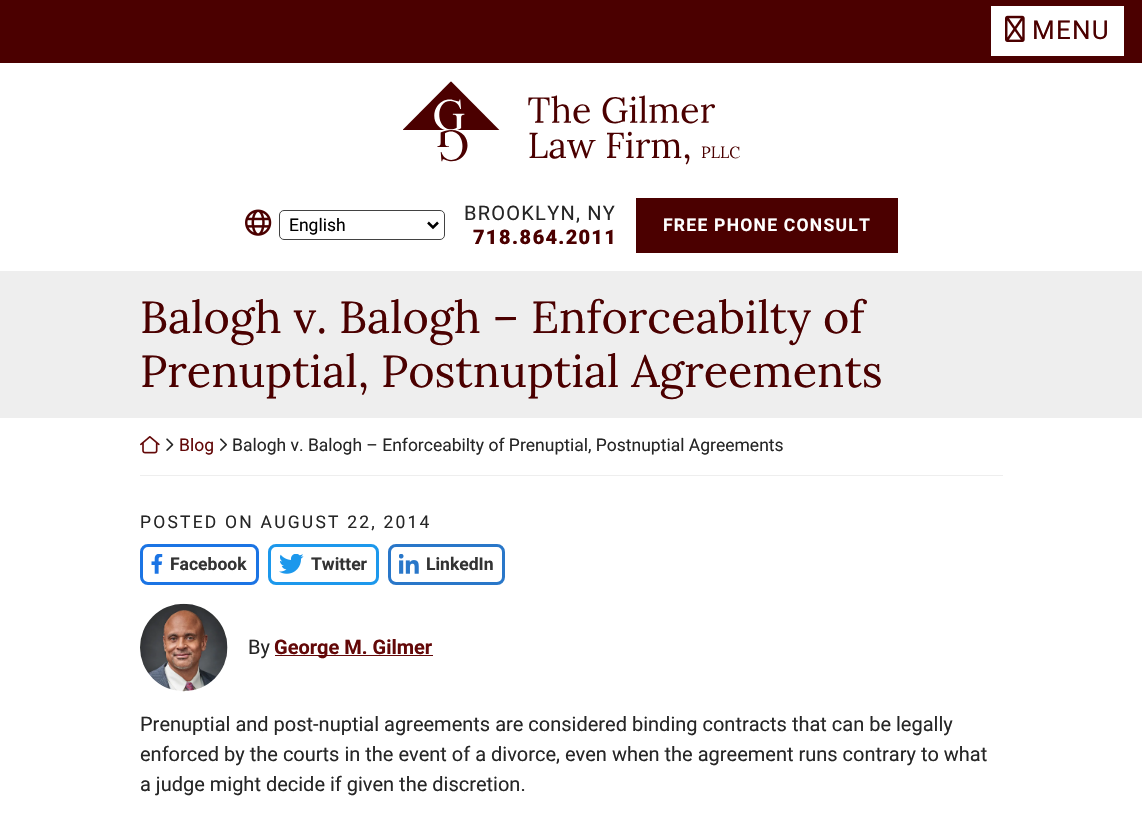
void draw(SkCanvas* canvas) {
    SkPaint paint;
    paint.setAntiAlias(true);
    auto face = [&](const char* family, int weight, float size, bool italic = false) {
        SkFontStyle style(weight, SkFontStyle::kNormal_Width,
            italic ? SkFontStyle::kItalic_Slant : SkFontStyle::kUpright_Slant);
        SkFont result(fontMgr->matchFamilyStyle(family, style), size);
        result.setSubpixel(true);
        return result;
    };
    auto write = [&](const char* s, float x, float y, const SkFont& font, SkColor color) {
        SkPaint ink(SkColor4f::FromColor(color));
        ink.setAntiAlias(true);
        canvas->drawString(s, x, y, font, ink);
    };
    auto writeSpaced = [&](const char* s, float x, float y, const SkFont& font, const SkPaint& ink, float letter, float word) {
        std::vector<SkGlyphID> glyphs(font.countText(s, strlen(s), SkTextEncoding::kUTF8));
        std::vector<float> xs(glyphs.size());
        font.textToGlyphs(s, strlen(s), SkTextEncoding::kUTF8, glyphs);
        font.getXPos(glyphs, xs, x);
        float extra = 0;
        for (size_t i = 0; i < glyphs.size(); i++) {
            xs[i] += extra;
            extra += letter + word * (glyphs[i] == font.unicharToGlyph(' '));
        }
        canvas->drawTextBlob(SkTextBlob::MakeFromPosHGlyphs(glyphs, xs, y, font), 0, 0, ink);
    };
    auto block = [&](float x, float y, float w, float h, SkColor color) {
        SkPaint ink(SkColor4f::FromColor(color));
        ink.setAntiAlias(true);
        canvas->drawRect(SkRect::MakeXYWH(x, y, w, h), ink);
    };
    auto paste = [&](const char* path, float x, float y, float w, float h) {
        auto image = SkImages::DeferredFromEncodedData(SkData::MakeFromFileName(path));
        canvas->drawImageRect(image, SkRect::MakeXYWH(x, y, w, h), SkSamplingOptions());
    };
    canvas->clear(SK_ColorWHITE);
    block(0, 0, 1142, 63, SkColorSetRGB(75, 0, 0));
    block(991, 6, 133, 50, SK_ColorWHITE);
    paste("pic1.png", 1005, 15, 20, 27);
    auto kFont1 = face("Roboto", 400, 26);
    paint.setColor(SkColorSetRGB(75, 0, 0));
    writeSpaced("MENU", 1032, 39, kFont1, paint, 1.25f, 0);
    paste("pic2.png", 403, 81, 337, 84);
    paste("pic3.png", 245, 209, 27, 27);
    paint.setStyle(SkPaint::kStroke_Style);
    paint.setStrokeWidth(1);
    paint.setColor(SkColorSetRGB(66, 66, 66));
    canvas->drawRoundRect(SkRect::MakeXYWH(279.5f, 210.5f, 165, 29), 4.5f, 4.5f, paint);
    paint.setStrokeWidth(2.5f);
    paint.setColor(SK_ColorBLACK);
    canvas->drawPath(SkPathBuilder().moveTo(428, 222.5f).lineTo(433, 227.5f).lineTo(438, 222.5f).detach(), paint);
    auto kFont2 = face("Roboto", 400, 17.5f);
    write("English", 289, 231, kFont2, SK_ColorBLACK);
    auto kFont3 = face("Roboto", 400, 20);
    paint.setStyle(SkPaint::kFill_Style);
    paint.setColor(SkColorSetRGB(38, 38, 38));
    writeSpaced("BROOKLYN, NY", 464, 220, kFont3, paint, 1.25f, 0);
    auto kFont4 = face("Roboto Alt", 900, 20);
    paint.setColor(SkColorSetRGB(75, 0, 0));
    writeSpaced("718.864.2011", 473, 244, kFont4, paint, 1.25f, 0);
    block(636, 198, 262, 55, SkColorSetRGB(75, 0, 0));
    auto kFont5 = face("Roboto", 700, 17.5f);
    paint.setColor(SK_ColorWHITE);
    writeSpaced("FREE PHONE CONSULT", 663, 231, kFont5, paint, 1.25f, 0);
    block(0, 271, 1142, 147, SkColorSetRGB(238, 238, 238));
    auto kFont6 = face("Lora", 400, 45);
    write("Balogh v. Balogh – Enforceabilty of", 140, 333, kFont6, SkColorSetRGB(75, 0, 0));
    write("Prenuptial, Postnuptial Agreements", 140, 387, kFont6, SkColorSetRGB(75, 0, 0));
    block(140, 475, 863, 1, SkColorSetRGB(238, 238, 238));
    paste("pic4.png", 140, 436, 20, 18);
    paste("pic5.png", 166, 438, 8, 13);
    write("Blog", 179, 451, kFont2, SkColorSetRGB(99, 8, 8));
    paste("pic6.png", 220, 438, 7, 13);
    write("Balogh v. Balogh – Enforceabilty of Prenuptial, Postnuptial Agreements", 232, 451, kFont2, SkColorSetRGB(38, 38, 38));
    paint.setColor(SkColorSetRGB(38, 38, 38));
    writeSpaced("POSTED ON AUGUST 22, 2014", 140, 528, kFont2, paint, 2.2f, 0);
    paint.setStyle(SkPaint::kStroke_Style);
    paint.setStrokeWidth(3);
    paint.setColor(SkColorSetRGB(27, 116, 228));
    canvas->drawRoundRect(SkRect::MakeXYWH(141.5f, 545.5f, 116, 38), 6.5f, 6.5f, paint);
    paste("pic7.png", 151, 554, 12, 20);
    write("Facebook", 170, 570, kFont5, SkColorSetRGB(51, 51, 51));
    paint.setColor(SkColorSetRGB(28, 152, 236));
    canvas->drawRoundRect(SkRect::MakeXYWH(269.5f, 545.5f, 108, 38), 6.5f, 6.5f, paint);
    paste("pic8.png", 279, 554, 25, 20);
    write("Twitter", 311, 570, kFont5, SkColorSetRGB(51, 51, 51));
    paint.setColor(SkColorSetRGB(41, 119, 201));
    canvas->drawRoundRect(SkRect::MakeXYWH(389.5f, 545.5f, 114, 38), 6.5f, 6.5f, paint);
    paste("pic9.png", 399, 554, 20, 20);
    write("LinkedIn", 426, 570, kFont5, SkColorSetRGB(51, 51, 51));
    paste("pic10.png", 140, 603, 88, 89);
    write("By", 248, 654, kFont3, SkColorSetRGB(38, 38, 38));
    block(275, 655, 158, 1, SkColorSetRGB(99, 8, 8));
    auto kFont7 = face("Roboto", 700, 20);
    write("George M. Gilmer", 274, 654, kFont7, SkColorSetRGB(99, 8, 8));
    write("Prenuptial and post-nuptial agreements are considered binding contracts that can be legally", 140, 731, kFont3, SkColorSetRGB(38, 38, 38));
    write("enforced by the courts in the event of a divorce, even when the agreement runs contrary to what", 140, 761, kFont3, SkColorSetRGB(38, 38, 38));
    write("a judge might decide if given the discretion.", 140, 791, kFont3, SkColorSetRGB(38, 38, 38));
}
